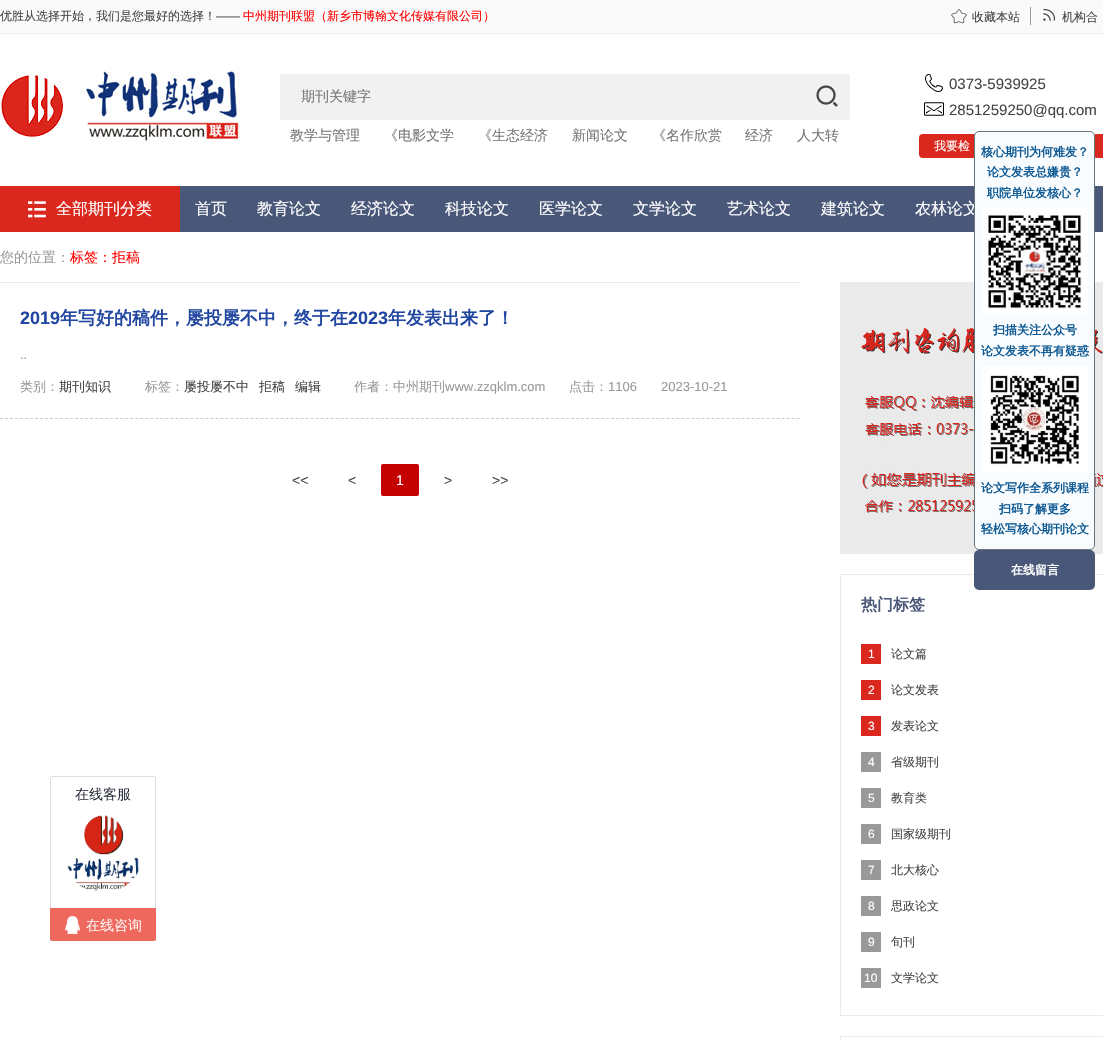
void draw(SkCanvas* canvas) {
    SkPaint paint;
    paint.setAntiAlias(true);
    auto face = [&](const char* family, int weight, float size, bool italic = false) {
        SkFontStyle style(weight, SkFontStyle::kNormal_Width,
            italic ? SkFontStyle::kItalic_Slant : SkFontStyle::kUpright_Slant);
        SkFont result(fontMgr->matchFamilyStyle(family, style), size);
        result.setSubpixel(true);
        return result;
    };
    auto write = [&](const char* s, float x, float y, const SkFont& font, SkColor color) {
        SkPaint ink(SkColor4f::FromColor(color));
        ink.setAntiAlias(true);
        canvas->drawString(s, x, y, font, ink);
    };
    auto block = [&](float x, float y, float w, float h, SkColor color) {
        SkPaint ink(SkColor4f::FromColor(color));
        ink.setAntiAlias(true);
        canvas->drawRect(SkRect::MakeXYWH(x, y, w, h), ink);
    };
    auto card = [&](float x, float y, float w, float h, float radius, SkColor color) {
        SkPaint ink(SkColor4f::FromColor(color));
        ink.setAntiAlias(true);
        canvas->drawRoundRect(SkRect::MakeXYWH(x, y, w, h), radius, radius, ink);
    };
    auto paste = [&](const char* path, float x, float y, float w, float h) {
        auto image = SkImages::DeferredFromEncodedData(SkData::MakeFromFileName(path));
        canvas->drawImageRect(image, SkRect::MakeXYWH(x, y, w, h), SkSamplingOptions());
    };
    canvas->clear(SK_ColorWHITE);
    block(0, 0, 1103, 33, SkColorSetRGB(250, 250, 250));
    block(0, 33, 1103, 1, SkColorSetRGB(238, 238, 238));
    auto kFont1 = face("WenQuanYi Zen Hei", 500, 12);
    write("优胜从选择开始，我们是您最好的选择！", 0, 20, kFont1, SkColorSetRGB(68, 68, 68));
    auto kFont2 = face("Liberation Sans", 400, 12);
    write("——", 216, 20, kFont2, SkColorSetRGB(68, 68, 68));
    write("中州期刊联盟（新乡市博翰文化传媒有限公司）", 243, 20, kFont1, SkColorSetRGB(255, 0, 0));
    paste("pic1.png", 951, 9, 16, 15);
    write("收藏本站", 972, 21, kFont1, SkColorSetRGB(68, 68, 68));
    paste("pic2.png", 1043, 8, 13, 13);
    write("机构合", 1062, 21, kFont1, SkColorSetRGB(68, 68, 68));
    block(1030, 7, 1, 18, SkColorSetRGB(153, 153, 153));
    paste("pic3.png", 0, 70, 240, 74);
    card(280, 74, 570, 46, 2, SkColorSetRGB(241, 241, 241));
    auto kFont3 = face("WenQuanYi Zen Hei", 500, 14);
    write("期刊关键字", 301, 101, kFont3, SkColorSetRGB(119, 119, 119));
    paste("pic4.png", 816, 85, 22, 22);
    write("教学与管理", 290, 140, kFont3, SkColorSetRGB(119, 119, 119));
    write("《电影文学", 384, 140, kFont3, SkColorSetRGB(119, 119, 119));
    write("《生态经济", 478, 140, kFont3, SkColorSetRGB(119, 119, 119));
    write("新闻论文", 572, 140, kFont3, SkColorSetRGB(119, 119, 119));
    write("《名作欣赏", 652, 140, kFont3, SkColorSetRGB(119, 119, 119));
    write("经济", 745, 140, kFont3, SkColorSetRGB(119, 119, 119));
    write("人大转", 797, 140, kFont3, SkColorSetRGB(119, 119, 119));
    paste("pic5.png", 925, 74, 18, 18);
    auto kFont4 = face("Liberation Sans", 400, 15);
    write("0373-5939925", 949, 89, kFont4, SkColorSetRGB(68, 68, 68));
    paste("pic6.png", 924, 102, 20, 14);
    write("2851259250@qq.com", 949, 115, kFont4, SkColorSetRGB(68, 68, 68));
    card(919, 134, 78, 24, 4, SkColorSetRGB(219, 40, 30));
    write("我要检", 934, 150, kFont1, SK_ColorWHITE);
    card(1093, 134, 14, 24, 4, SkColorSetRGB(219, 40, 30));
    block(180, 186, 923, 46, SkColorSetRGB(73, 87, 121));
    block(0, 186, 180, 46, SkColorSetRGB(219, 40, 30));
    paste("pic7.png", 28, 201, 18, 17);
    auto kFont5 = face("WenQuanYi Zen Hei", 500, 16);
    write("全部期刊分类", 56, 214, kFont5, SK_ColorWHITE);
    write("首页", 195, 214, kFont5, SK_ColorWHITE);
    write("教育论文", 257, 214, kFont5, SK_ColorWHITE);
    write("经济论文", 351, 214, kFont5, SK_ColorWHITE);
    write("科技论文", 445, 214, kFont5, SK_ColorWHITE);
    write("医学论文", 539, 214, kFont5, SK_ColorWHITE);
    write("文学论文", 633, 214, kFont5, SK_ColorWHITE);
    write("艺术论文", 727, 214, kFont5, SK_ColorWHITE);
    write("建筑论文", 821, 214, kFont5, SK_ColorWHITE);
    write("农林论文", 915, 214, kFont5, SK_ColorWHITE);
    block(0, 282, 800, 1, SkColorSetRGB(234, 234, 234));
    write("您的位置：", 0, 262, kFont3, SkColorSetRGB(153, 153, 153));
    write("标签：拒稿", 70, 262, kFont3, SkColorSetRGB(255, 0, 0));
    paint.setStyle(SkPaint::kStroke_Style);
    paint.setStrokeWidth(1);
    paint.setColor(SkColorSetRGB(204, 204, 204));
    paint.setPathEffect(SkDashPathEffect::Make({{3, 2.01f}}, 0));
    canvas->drawPath(SkPathBuilder().moveTo(0, 418.5f).lineTo(800, 418.5f).detach(), paint);
    paint.setPathEffect(nullptr);
    auto kFont6 = face("Liberation Sans", 700, 18);
    write("2019", 20, 324, kFont6, SkColorSetRGB(34, 71, 160));
    auto kFont7 = face("WenQuanYi Zen Hei", 700, 18);
    write("年写好的稿件，屡投屡不中，终于在", 60, 324, kFont7, SkColorSetRGB(34, 71, 160));
    write("2023", 348, 324, kFont6, SkColorSetRGB(34, 71, 160));
    write("年发表出来了！", 388, 324, kFont7, SkColorSetRGB(34, 71, 160));
    auto kFont8 = face("Liberation Sans", 400, 13);
    write("..", 20, 359, kFont8, SkColorSetRGB(153, 153, 153));
    auto kFont9 = face("WenQuanYi Zen Hei", 500, 13);
    write("类别：", 20, 391, kFont9, SkColorSetRGB(153, 153, 153));
    write("期刊知识", 59, 391, kFont9, SkColorSetRGB(68, 68, 68));
    write("标签：", 145, 391, kFont9, SkColorSetRGB(153, 153, 153));
    write("屡投屡不中", 184, 391, kFont9, SkColorSetRGB(68, 68, 68));
    write("拒稿", 259, 391, kFont9, SkColorSetRGB(68, 68, 68));
    write("编辑", 295, 391, kFont9, SkColorSetRGB(68, 68, 68));
    write("作者：中州期刊", 354, 391, kFont9, SkColorSetRGB(153, 153, 153));
    write("www.zzqklm.com", 445, 391, kFont8, SkColorSetRGB(153, 153, 153));
    write("点击：", 569, 391, kFont9, SkColorSetRGB(153, 153, 153));
    write("1106", 608, 391, kFont8, SkColorSetRGB(153, 153, 153));
    write("2023-10-21", 661, 391, kFont8, SkColorSetRGB(153, 153, 153));
    auto kFont10 = face("Liberation Sans", 400, 14);
    write("<<", 292, 485, kFont10, SkColorSetRGB(68, 68, 68));
    write("<", 348, 485, kFont10, SkColorSetRGB(68, 68, 68));
    card(381, 464, 38, 32, 2, SkColorSetRGB(196, 0, 0));
    write("1", 396, 485, kFont10, SK_ColorWHITE);
    write(">", 444, 485, kFont10, SkColorSetRGB(68, 68, 68));
    write(">>", 492, 485, kFont10, SkColorSetRGB(68, 68, 68));
    paint.setColor(SkColorSetRGB(234, 234, 234));
    canvas->drawRect(SkRect::MakeXYWH(840.5f, 282.5f, 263, 271), paint);
    paste("pic8.png", 841, 283, 262, 270);
    canvas->drawRect(SkRect::MakeXYWH(840.5f, 574.5f, 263, 441), paint);
    auto kFont11 = face("WenQuanYi Zen Hei", 700, 16);
    write("热门标签", 861, 610, kFont11, SkColorSetRGB(73, 87, 121));
    block(861, 644, 20, 20, SkColorSetRGB(219, 40, 30));
    write("1", 868, 658, kFont2, SK_ColorWHITE);
    write("论文篇", 891, 658, kFont1, SkColorSetRGB(68, 68, 68));
    block(861, 680, 20, 20, SkColorSetRGB(219, 40, 30));
    write("2", 868, 694, kFont2, SK_ColorWHITE);
    write("论文发表", 891, 694, kFont1, SkColorSetRGB(68, 68, 68));
    block(861, 716, 20, 20, SkColorSetRGB(219, 40, 30));
    write("3", 868, 730, kFont2, SK_ColorWHITE);
    write("发表论文", 891, 730, kFont1, SkColorSetRGB(68, 68, 68));
    block(861, 752, 20, 20, SkColorSetRGB(153, 153, 153));
    write("4", 868, 766, kFont2, SK_ColorWHITE);
    write("省级期刊", 891, 766, kFont1, SkColorSetRGB(68, 68, 68));
    block(861, 788, 20, 20, SkColorSetRGB(153, 153, 153));
    write("5", 868, 802, kFont2, SK_ColorWHITE);
    write("教育类", 891, 802, kFont1, SkColorSetRGB(68, 68, 68));
    block(861, 824, 20, 20, SkColorSetRGB(153, 153, 153));
    write("6", 868, 838, kFont2, SK_ColorWHITE);
    write("国家级期刊", 891, 838, kFont1, SkColorSetRGB(68, 68, 68));
    block(861, 860, 20, 20, SkColorSetRGB(153, 153, 153));
    write("7", 868, 874, kFont2, SK_ColorWHITE);
    write("北大核心", 891, 874, kFont1, SkColorSetRGB(68, 68, 68));
    block(861, 896, 20, 20, SkColorSetRGB(153, 153, 153));
    write("8", 868, 910, kFont2, SK_ColorWHITE);
    write("思政论文", 891, 910, kFont1, SkColorSetRGB(68, 68, 68));
    block(861, 932, 20, 20, SkColorSetRGB(153, 153, 153));
    write("9", 868, 946, kFont2, SK_ColorWHITE);
    write("旬刊", 891, 946, kFont1, SkColorSetRGB(68, 68, 68));
    block(861, 968, 20, 20, SkColorSetRGB(153, 153, 153));
    write("10", 864, 982, kFont2, SK_ColorWHITE);
    write("文学论文", 891, 982, kFont1, SkColorSetRGB(68, 68, 68));
    canvas->drawRect(SkRect::MakeXYWH(840.5f, 1036.5f, 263, 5), paint);
    paint.setStyle(SkPaint::kFill_Style);
    paint.setColor(SkColorSetRGB(249, 252, 254));
    canvas->drawRoundRect(SkRect::MakeXYWH(974.5f, 131.5f, 120, 418), 4.5f, 4.5f, paint);
    paint.setStyle(SkPaint::kStroke_Style);
    paint.setColor(SkColorSetRGB(101, 116, 123));
    canvas->drawRoundRect(SkRect::MakeXYWH(974.5f, 131.5f, 120, 418), 4.5f, 4.5f, paint);
    auto kFont12 = face("WenQuanYi Zen Hei", 700, 12);
    write("核心期刊为何难发？", 981, 156, kFont12, SkColorSetRGB(15, 90, 148));
    write("论文发表总嫌贵？", 987, 176, kFont12, SkColorSetRGB(15, 90, 148));
    write("职院单位发核心？", 987, 197, kFont12, SkColorSetRGB(15, 90, 148));
    paste("pic9.png", 981, 208, 107, 107);
    write("扫描关注公众号", 993, 334, kFont12, SkColorSetRGB(15, 90, 148));
    write("论文发表不再有疑惑", 981, 355, kFont12, SkColorSetRGB(15, 90, 148));
    paste("pic10.png", 981, 366, 107, 107);
    write("论文写作全系列课程", 981, 492, kFont12, SkColorSetRGB(15, 90, 148));
    write("扫码了解更多", 999, 513, kFont12, SkColorSetRGB(15, 90, 148));
    write("轻松写核心期刊论文", 981, 533, kFont12, SkColorSetRGB(15, 90, 148));
    card(974, 550, 121, 40, 5, SkColorSetRGB(73, 87, 121));
    write("在线留言", 1011, 574, kFont12, SK_ColorWHITE);
    paste("pic11.png", 50, 776, 106, 165);
}
